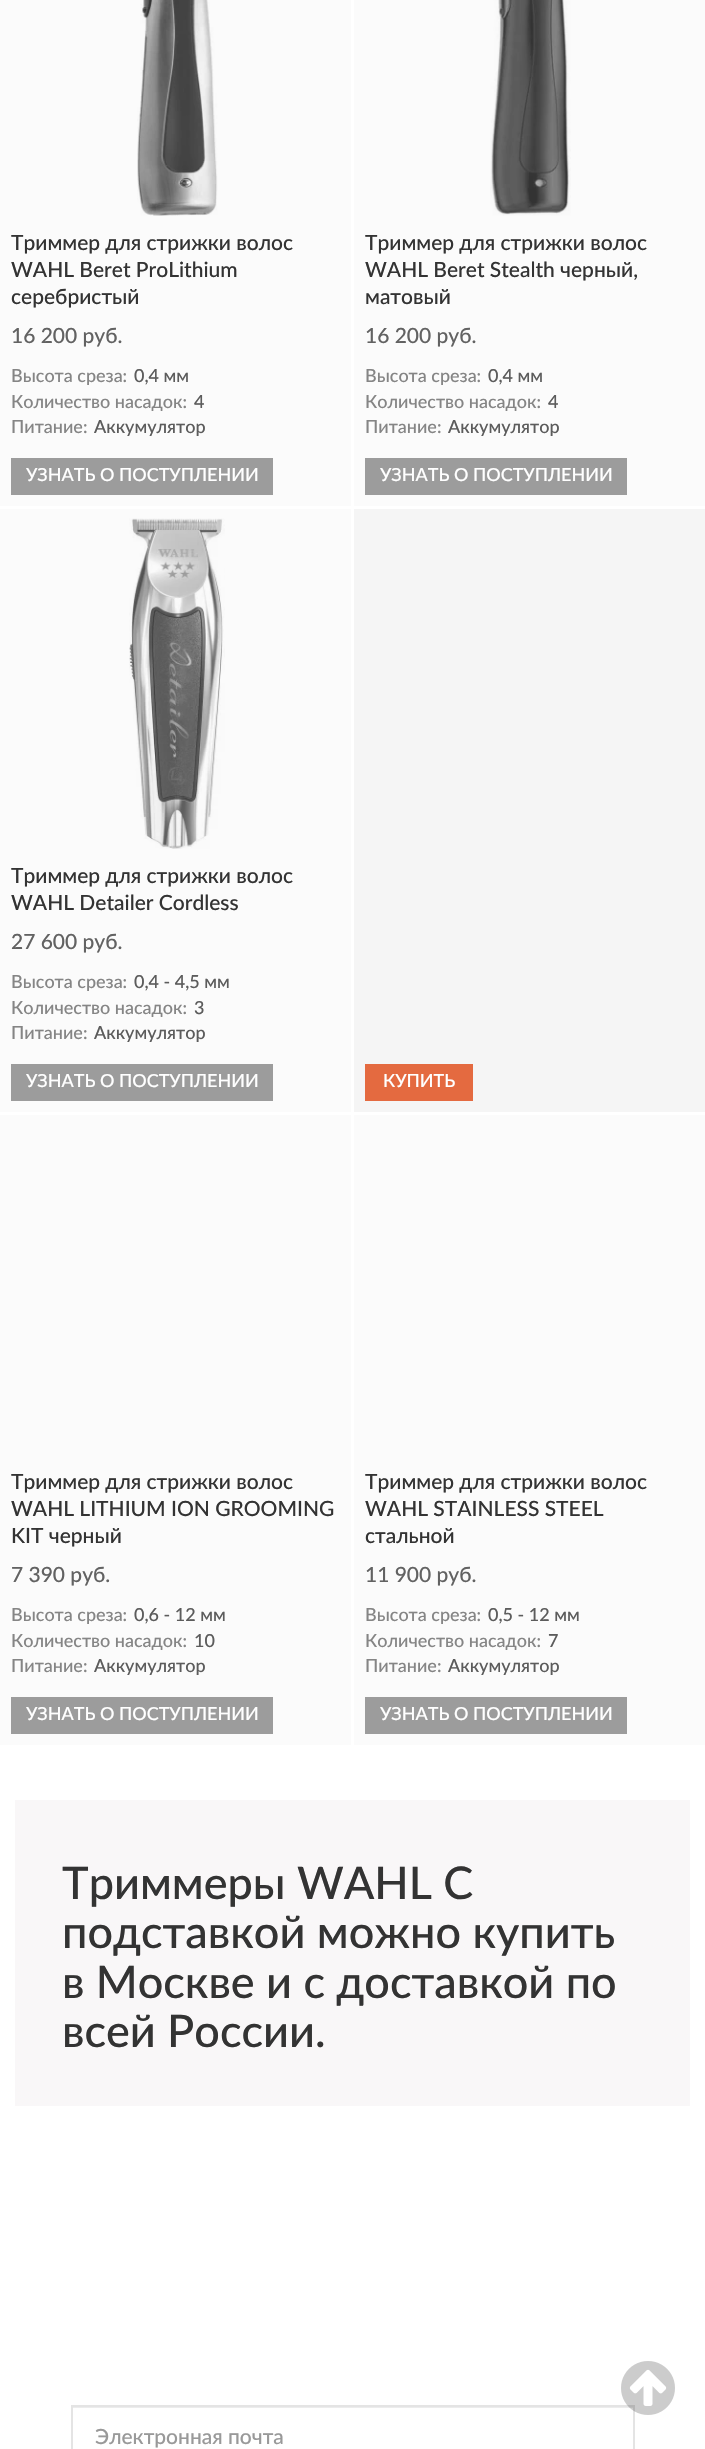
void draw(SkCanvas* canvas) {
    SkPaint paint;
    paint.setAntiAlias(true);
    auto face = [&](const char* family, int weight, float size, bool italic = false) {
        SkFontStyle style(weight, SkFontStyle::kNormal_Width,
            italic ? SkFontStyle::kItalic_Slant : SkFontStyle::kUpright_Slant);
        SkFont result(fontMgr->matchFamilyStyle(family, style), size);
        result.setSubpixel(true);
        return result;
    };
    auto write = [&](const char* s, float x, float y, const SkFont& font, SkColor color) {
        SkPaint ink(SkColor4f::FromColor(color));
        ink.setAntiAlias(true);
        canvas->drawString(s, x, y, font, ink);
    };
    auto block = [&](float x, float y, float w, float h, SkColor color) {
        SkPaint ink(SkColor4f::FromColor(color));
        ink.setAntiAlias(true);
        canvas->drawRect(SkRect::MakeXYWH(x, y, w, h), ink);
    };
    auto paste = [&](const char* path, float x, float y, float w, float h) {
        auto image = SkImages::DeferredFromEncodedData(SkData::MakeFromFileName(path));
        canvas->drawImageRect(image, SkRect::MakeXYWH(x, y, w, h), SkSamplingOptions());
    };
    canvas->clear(SK_ColorWHITE);
    block(0, 0, 351, 506, SkColorSetRGB(251, 251, 251));
    paste("pic1.png", 137, 0, 81, 216);
    auto kFont1 = face("Lato", 500, 21);
    write("Триммер для стрижки волос", 11, 250, kFont1, SkColorSetRGB(51, 51, 51));
    write("WAHL Beret ProLithium", 11, 277, kFont1, SkColorSetRGB(51, 51, 51));
    write("серебристый", 11, 304, kFont1, SkColorSetRGB(51, 51, 51));
    write("16 200 руб.", 11, 343, kFont1, SkColorSetRGB(98, 98, 98));
    auto kFont2 = face("Lato", 500, 18);
    write("Высота среза:", 11, 382, kFont2, SkColorSetRGB(133, 133, 133));
    write("0,4 мм", 134, 382, kFont2, SkColorSetRGB(92, 92, 92));
    write("Количество насадок:", 11, 408, kFont2, SkColorSetRGB(133, 133, 133));
    write("4", 194, 408, kFont2, SkColorSetRGB(92, 92, 92));
    write("Питание:", 11, 433, kFont2, SkColorSetRGB(133, 133, 133));
    write("Аккумулятор", 94, 433, kFont2, SkColorSetRGB(92, 92, 92));
    block(11, 458, 262, 37, SkColorSetRGB(156, 156, 156));
    write("УЗНАТЬ О ПОСТУПЛЕНИИ", 26, 481, kFont2, SK_ColorWHITE);
    block(354, 0, 351, 506, SkColorSetRGB(251, 251, 251));
    paste("pic2.png", 490, 0, 81, 216);
    write("Триммер для стрижки волос", 365, 250, kFont1, SkColorSetRGB(51, 51, 51));
    write("WAHL Beret Stealth черный,", 365, 277, kFont1, SkColorSetRGB(51, 51, 51));
    write("матовый", 365, 304, kFont1, SkColorSetRGB(51, 51, 51));
    write("16 200 руб.", 365, 343, kFont1, SkColorSetRGB(98, 98, 98));
    write("Высота среза:", 365, 382, kFont2, SkColorSetRGB(133, 133, 133));
    write("0,4 мм", 488, 382, kFont2, SkColorSetRGB(92, 92, 92));
    write("Количество насадок:", 365, 408, kFont2, SkColorSetRGB(133, 133, 133));
    write("4", 548, 408, kFont2, SkColorSetRGB(92, 92, 92));
    write("Питание:", 365, 433, kFont2, SkColorSetRGB(133, 133, 133));
    write("Аккумулятор", 448, 433, kFont2, SkColorSetRGB(92, 92, 92));
    block(365, 458, 262, 37, SkColorSetRGB(156, 156, 156));
    write("УЗНАТЬ О ПОСТУПЛЕНИИ", 380, 481, kFont2, SK_ColorWHITE);
    block(0, 509, 351, 603, SkColorSetRGB(251, 251, 251));
    paste("pic3.png", 129, 518, 96, 331);
    write("Триммер для стрижки волос", 11, 883, kFont1, SkColorSetRGB(51, 51, 51));
    write("WAHL Detailer Cordless", 11, 910, kFont1, SkColorSetRGB(51, 51, 51));
    write("27 600 руб.", 11, 949, kFont1, SkColorSetRGB(98, 98, 98));
    write("Высота среза:", 11, 988, kFont2, SkColorSetRGB(133, 133, 133));
    write("0,4 - 4,5 мм", 134, 988, kFont2, SkColorSetRGB(92, 92, 92));
    write("Количество насадок:", 11, 1014, kFont2, SkColorSetRGB(133, 133, 133));
    write("3", 194, 1014, kFont2, SkColorSetRGB(92, 92, 92));
    write("Питание:", 11, 1039, kFont2, SkColorSetRGB(133, 133, 133));
    write("Аккумулятор", 94, 1039, kFont2, SkColorSetRGB(92, 92, 92));
    block(11, 1064, 262, 37, SkColorSetRGB(156, 156, 156));
    write("УЗНАТЬ О ПОСТУПЛЕНИИ", 26, 1087, kFont2, SK_ColorWHITE);
    block(354, 509, 351, 603, SkColorSetRGB(245, 245, 245));
    block(365, 1064, 108, 37, SkColorSetRGB(228, 106, 64));
    write("КУПИТЬ", 383, 1087, kFont2, SK_ColorWHITE);
    block(0, 1115, 351, 630, SkColorSetRGB(251, 251, 251));
    write("Триммер для стрижки волос", 11, 1489, kFont1, SkColorSetRGB(51, 51, 51));
    write("WAHL LITHIUM ION GROOMING", 11, 1516, kFont1, SkColorSetRGB(51, 51, 51));
    write("KIT черный", 11, 1543, kFont1, SkColorSetRGB(51, 51, 51));
    write("7 390 руб.", 11, 1582, kFont1, SkColorSetRGB(98, 98, 98));
    write("Высота среза:", 11, 1621, kFont2, SkColorSetRGB(133, 133, 133));
    write("0,6 - 12 мм", 134, 1621, kFont2, SkColorSetRGB(92, 92, 92));
    write("Количество насадок:", 11, 1647, kFont2, SkColorSetRGB(133, 133, 133));
    write("10", 194, 1647, kFont2, SkColorSetRGB(92, 92, 92));
    write("Питание:", 11, 1672, kFont2, SkColorSetRGB(133, 133, 133));
    write("Аккумулятор", 94, 1672, kFont2, SkColorSetRGB(92, 92, 92));
    block(11, 1697, 262, 37, SkColorSetRGB(156, 156, 156));
    write("УЗНАТЬ О ПОСТУПЛЕНИИ", 26, 1720, kFont2, SK_ColorWHITE);
    block(354, 1115, 351, 630, SkColorSetRGB(251, 251, 251));
    write("Триммер для стрижки волос", 365, 1489, kFont1, SkColorSetRGB(51, 51, 51));
    write("WAHL STAINLESS STEEL", 365, 1516, kFont1, SkColorSetRGB(51, 51, 51));
    write("стальной", 365, 1543, kFont1, SkColorSetRGB(51, 51, 51));
    write("11 900 руб.", 365, 1582, kFont1, SkColorSetRGB(98, 98, 98));
    write("Высота среза:", 365, 1621, kFont2, SkColorSetRGB(133, 133, 133));
    write("0,5 - 12 мм", 488, 1621, kFont2, SkColorSetRGB(92, 92, 92));
    write("Количество насадок:", 365, 1647, kFont2, SkColorSetRGB(133, 133, 133));
    write("7", 548, 1647, kFont2, SkColorSetRGB(92, 92, 92));
    write("Питание:", 365, 1672, kFont2, SkColorSetRGB(133, 133, 133));
    write("Аккумулятор", 448, 1672, kFont2, SkColorSetRGB(92, 92, 92));
    block(365, 1697, 262, 37, SkColorSetRGB(156, 156, 156));
    write("УЗНАТЬ О ПОСТУПЛЕНИИ", 380, 1720, kFont2, SK_ColorWHITE);
    block(15, 1800, 675, 306, SkColorSetRGB(249, 247, 248));
    auto kFont3 = face("Lato", 500, 45);
    write("Триммеры WAHL С", 62, 1899, kFont3, SkColorSetRGB(51, 51, 51));
    write("подставкой можно купить", 62, 1948, kFont3, SkColorSetRGB(51, 51, 51));
    write("в Москве и с доставкой по", 62, 1998, kFont3, SkColorSetRGB(51, 51, 51));
    write("всей России.", 62, 2047, kFont3, SkColorSetRGB(51, 51, 51));
    block(72, 2407, 561, 1, SkColorSetRGB(236, 236, 236));
    paint.setStyle(SkPaint::kStroke_Style);
    paint.setStrokeWidth(2);
    paint.setColor(SkColorSetRGB(228, 228, 228));
    canvas->drawRect(SkRect::MakeXYWH(72, 2406, 562, 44), paint);
    paste("pic4.png", 621, 2361, 54, 54);
    write("Электронная почта", 95, 2444, kFont1, SkColorSetRGB(153, 153, 153));
}
